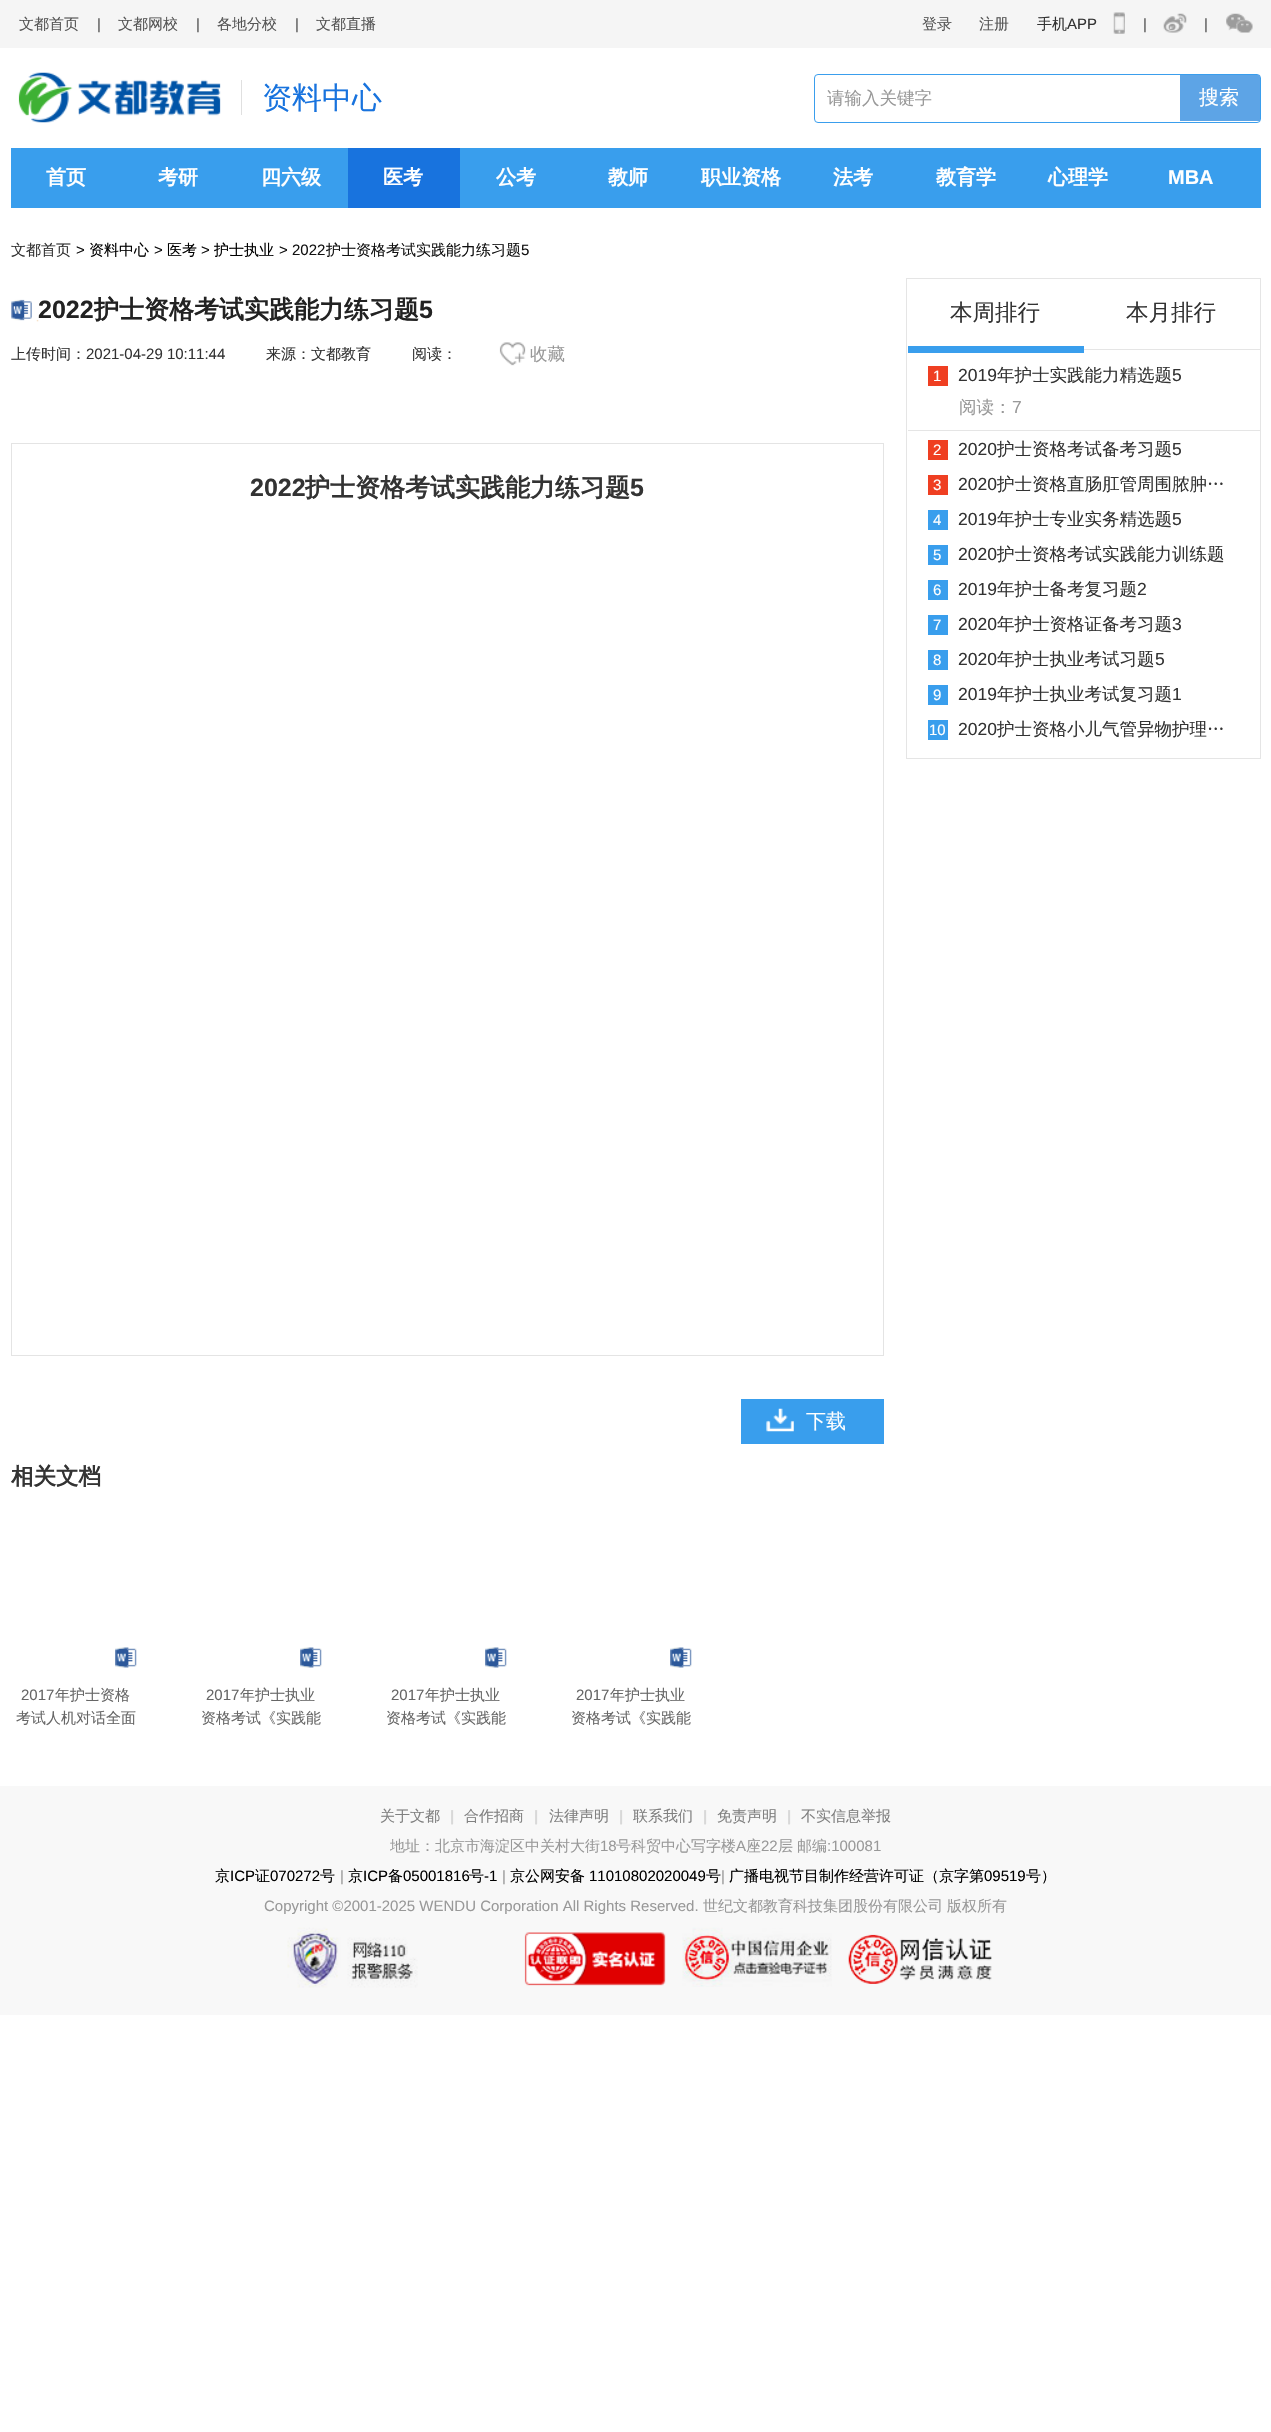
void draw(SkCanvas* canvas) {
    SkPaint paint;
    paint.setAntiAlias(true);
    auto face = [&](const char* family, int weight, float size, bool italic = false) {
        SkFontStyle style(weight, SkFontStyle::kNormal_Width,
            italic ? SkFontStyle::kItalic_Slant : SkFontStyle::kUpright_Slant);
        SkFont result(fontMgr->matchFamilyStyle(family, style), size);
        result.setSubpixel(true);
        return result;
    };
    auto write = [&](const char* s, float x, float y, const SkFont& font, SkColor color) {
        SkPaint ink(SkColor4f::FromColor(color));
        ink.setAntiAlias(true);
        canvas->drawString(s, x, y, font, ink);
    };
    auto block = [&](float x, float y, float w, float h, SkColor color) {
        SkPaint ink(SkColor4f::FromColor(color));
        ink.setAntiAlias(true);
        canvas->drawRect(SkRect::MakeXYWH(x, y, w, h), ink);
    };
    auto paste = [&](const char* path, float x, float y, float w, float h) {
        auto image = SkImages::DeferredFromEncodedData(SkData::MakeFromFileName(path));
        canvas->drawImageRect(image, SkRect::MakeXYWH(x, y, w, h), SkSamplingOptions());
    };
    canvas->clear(SK_ColorWHITE);
    block(0, 0, 1271, 48, SkColorSetRGB(245, 245, 245));
    auto kFont1 = face("WenQuanYi Zen Hei", 500, 15);
    write("文都首页", 19, 29, kFont1, SkColorSetRGB(85, 85, 85));
    auto kFont2 = face("Liberation Sans", 400, 15);
    write("|", 97, 29, kFont2, SkColorSetRGB(85, 85, 85));
    write("文都网校", 118, 29, kFont1, SkColorSetRGB(85, 85, 85));
    write("|", 196, 29, kFont2, SkColorSetRGB(85, 85, 85));
    write("各地分校", 217, 29, kFont1, SkColorSetRGB(85, 85, 85));
    write("|", 295, 29, kFont2, SkColorSetRGB(85, 85, 85));
    write("文都直播", 316, 29, kFont1, SkColorSetRGB(85, 85, 85));
    write("登录", 922, 29, kFont1, SkColorSetRGB(85, 85, 85));
    write("注册", 979, 29, kFont1, SkColorSetRGB(85, 85, 85));
    write("手机", 1037, 29, kFont1, SkColorSetRGB(51, 51, 51));
    write("APP", 1067, 29, kFont2, SkColorSetRGB(51, 51, 51));
    paste("pic1.png", 1113, 12, 12, 22);
    write("|", 1143, 29, kFont2, SkColorSetRGB(85, 85, 85));
    paste("pic2.png", 1163, 13, 24, 20);
    write("|", 1204, 29, kFont2, SkColorSetRGB(85, 85, 85));
    paste("pic3.png", 1226, 13, 27, 20);
    paste("pic4.png", 18, 72, 203, 51);
    block(241, 80, 1, 35, SkColorSetRGB(224, 224, 224));
    auto kFont3 = face("WenQuanYi Zen Hei", 500, 30);
    write("资料中心", 262, 108, kFont3, SkColorSetRGB(24, 115, 222));
    paint.setStyle(SkPaint::kStroke_Style);
    paint.setStrokeWidth(1);
    paint.setColor(SkColorSetRGB(58, 158, 237));
    canvas->drawRoundRect(SkRect::MakeXYWH(814.5f, 74.5f, 446, 48), 3.5f, 3.5f, paint);
    auto kFont4 = face("WenQuanYi Zen Hei", 500, 17.5f);
    write("请输入关键字", 827, 104, kFont4, SkColorSetRGB(153, 153, 153));
    block(1180, 75, 80, 46, SkColorSetRGB(93, 164, 230));
    auto kFont5 = face("WenQuanYi Zen Hei", 500, 20);
    write("搜索", 1199, 104, kFont5, SK_ColorWHITE);
    block(11, 148, 1250, 60, SkColorSetRGB(57, 158, 237));
    auto kFont6 = face("WenQuanYi Zen Hei", 700, 20);
    write("首页", 46, 184, kFont6, SK_ColorWHITE);
    write("考研", 158, 184, kFont6, SK_ColorWHITE);
    write("四六级", 261, 184, kFont6, SK_ColorWHITE);
    block(348, 148, 112, 60, SkColorSetRGB(24, 115, 222));
    write("医考", 383, 184, kFont6, SK_ColorWHITE);
    write("公考", 496, 184, kFont6, SK_ColorWHITE);
    write("教师", 608, 184, kFont6, SK_ColorWHITE);
    write("职业资格", 701, 184, kFont6, SK_ColorWHITE);
    write("法考", 833, 184, kFont6, SK_ColorWHITE);
    write("教育学", 936, 184, kFont6, SK_ColorWHITE);
    write("心理学", 1048, 184, kFont6, SK_ColorWHITE);
    auto kFont7 = face("Liberation Sans", 700, 20);
    write("MBA", 1168, 184, kFont7, SK_ColorWHITE);
    write("文都首页", 11, 255, kFont1, SkColorSetRGB(51, 51, 51));
    write(">", 76, 255, kFont2, SkColorSetRGB(17, 17, 17));
    write("资料中心", 89, 255, kFont1, SK_ColorBLACK);
    write(">", 154, 255, kFont2, SkColorSetRGB(17, 17, 17));
    write("医考", 167, 255, kFont1, SK_ColorBLACK);
    write(">", 201, 255, kFont2, SkColorSetRGB(17, 17, 17));
    write("护士执业", 214, 255, kFont1, SK_ColorBLACK);
    write(">", 279, 255, kFont2, SkColorSetRGB(17, 17, 17));
    write("2022", 292, 255, kFont2, SkColorSetRGB(17, 17, 17));
    write("护士资格考试实践能力练习题", 326, 255, kFont1, SkColorSetRGB(17, 17, 17));
    write("5", 521, 255, kFont2, SkColorSetRGB(17, 17, 17));
    paste("pic5.png", 11, 299, 28, 23);
    auto kFont8 = face("Liberation Sans", 700, 25);
    write("2022", 38, 318, kFont8, SkColorSetRGB(34, 34, 34));
    auto kFont9 = face("WenQuanYi Zen Hei", 700, 25);
    write("护士资格考试实践能力练习题", 94, 318, kFont9, SkColorSetRGB(34, 34, 34));
    write("5", 419, 318, kFont8, SkColorSetRGB(34, 34, 34));
    write("上传时间：", 11, 359, kFont1, SkColorSetRGB(51, 51, 51));
    write("2021-04-29 10:11:44", 86, 359, kFont2, SkColorSetRGB(51, 51, 51));
    write("来源：文都教育", 266, 359, kFont1, SkColorSetRGB(51, 51, 51));
    write("阅读：", 412, 359, kFont1, SkColorSetRGB(51, 51, 51));
    paste("pic6.png", 499, 342, 27, 24);
    write("收藏", 530, 360, kFont4, SkColorSetRGB(153, 153, 153));
    paint.setColor(SkColorSetRGB(228, 228, 228));
    canvas->drawRect(SkRect::MakeXYWH(11.5f, 443.5f, 872, 912), paint);
    write("2022", 250, 496, kFont8, SkColorSetRGB(51, 51, 51));
    write("护士资格考试实践能力练习题", 305, 496, kFont9, SkColorSetRGB(51, 51, 51));
    write("5", 630, 496, kFont8, SkColorSetRGB(51, 51, 51));
    block(741, 1399, 143, 45, SkColorSetRGB(57, 158, 237));
    paste("pic7.png", 766, 1408, 28, 24);
    write("下载", 806, 1428, kFont5, SK_ColorWHITE);
    auto kFont10 = face("WenQuanYi Zen Hei", 700, 22.5f);
    write("相关文档", 11, 1484, kFont10, SkColorSetRGB(51, 51, 51));
    paste("pic8.png", 115, 1647, 22, 21);
    write("2017", 21, 1700, kFont2, SkColorSetRGB(102, 102, 102));
    write("年护士资格", 55, 1700, kFont1, SkColorSetRGB(102, 102, 102));
    write("考试人机对话全面", 16, 1723, kFont1, SkColorSetRGB(102, 102, 102));
    paste("pic8.png", 300, 1647, 22, 21);
    write("2017", 206, 1700, kFont2, SkColorSetRGB(102, 102, 102));
    write("年护士执业", 240, 1700, kFont1, SkColorSetRGB(102, 102, 102));
    write("资格考试《实践能", 201, 1723, kFont1, SkColorSetRGB(102, 102, 102));
    paste("pic8.png", 485, 1647, 22, 21);
    write("2017", 391, 1700, kFont2, SkColorSetRGB(102, 102, 102));
    write("年护士执业", 425, 1700, kFont1, SkColorSetRGB(102, 102, 102));
    write("资格考试《实践能", 386, 1723, kFont1, SkColorSetRGB(102, 102, 102));
    paste("pic8.png", 670, 1647, 22, 21);
    write("2017", 576, 1700, kFont2, SkColorSetRGB(102, 102, 102));
    write("年护士执业", 610, 1700, kFont1, SkColorSetRGB(102, 102, 102));
    write("资格考试《实践能", 571, 1723, kFont1, SkColorSetRGB(102, 102, 102));
    paint.setColor(SkColorSetRGB(229, 229, 229));
    canvas->drawRect(SkRect::MakeXYWH(906.5f, 278.5f, 354, 480), paint);
    block(1084, 349, 176, 1, SkColorSetRGB(229, 229, 229));
    block(908, 346, 176, 7, SkColorSetRGB(57, 158, 237));
    auto kFont11 = face("WenQuanYi Zen Hei", 500, 22.5f);
    write("本周排行", 950, 320, kFont11, SkColorSetRGB(51, 51, 51));
    write("本月排行", 1126, 320, kFont11, SkColorSetRGB(51, 51, 51));
    block(928, 366, 20, 20, SkColorSetRGB(239, 63, 34));
    write("1", 933, 381, kFont2, SK_ColorWHITE);
    auto kFont12 = face("Liberation Sans", 400, 17.5f);
    write("2019", 958, 381, kFont12, SkColorSetRGB(51, 51, 51));
    write("年护士实践能力精选题", 997, 381, kFont4, SkColorSetRGB(51, 51, 51));
    write("5", 1172, 381, kFont12, SkColorSetRGB(51, 51, 51));
    block(908, 430, 352, 1, SkColorSetRGB(229, 229, 229));
    write("阅读：", 959, 413, kFont4, SkColorSetRGB(153, 153, 153));
    write("7", 1012, 413, kFont12, SkColorSetRGB(153, 153, 153));
    block(928, 440, 20, 20, SkColorSetRGB(239, 63, 34));
    write("2", 933, 455, kFont2, SK_ColorWHITE);
    write("2020", 958, 455, kFont12, SkColorSetRGB(51, 51, 51));
    write("护士资格考试备考习题", 997, 455, kFont4, SkColorSetRGB(51, 51, 51));
    write("5", 1172, 455, kFont12, SkColorSetRGB(51, 51, 51));
    block(928, 475, 20, 20, SkColorSetRGB(239, 63, 34));
    write("3", 933, 490, kFont2, SK_ColorWHITE);
    write("2020", 958, 490, kFont12, SkColorSetRGB(51, 51, 51));
    write("护士资格直肠肛管周围脓肿…", 997, 490, kFont4, SkColorSetRGB(51, 51, 51));
    block(928, 510, 20, 20, SkColorSetRGB(57, 158, 237));
    write("4", 933, 525, kFont2, SK_ColorWHITE);
    write("2019", 958, 525, kFont12, SkColorSetRGB(51, 51, 51));
    write("年护士专业实务精选题", 997, 525, kFont4, SkColorSetRGB(51, 51, 51));
    write("5", 1172, 525, kFont12, SkColorSetRGB(51, 51, 51));
    block(928, 545, 20, 20, SkColorSetRGB(57, 158, 237));
    write("5", 933, 560, kFont2, SK_ColorWHITE);
    write("2020", 958, 560, kFont12, SkColorSetRGB(51, 51, 51));
    write("护士资格考试实践能力训练题", 997, 560, kFont4, SkColorSetRGB(51, 51, 51));
    block(928, 580, 20, 20, SkColorSetRGB(57, 158, 237));
    write("6", 933, 595, kFont2, SK_ColorWHITE);
    write("2019", 958, 595, kFont12, SkColorSetRGB(51, 51, 51));
    write("年护士备考复习题", 997, 595, kFont4, SkColorSetRGB(51, 51, 51));
    write("2", 1137, 595, kFont12, SkColorSetRGB(51, 51, 51));
    block(928, 615, 20, 20, SkColorSetRGB(57, 158, 237));
    write("7", 933, 630, kFont2, SK_ColorWHITE);
    write("2020", 958, 630, kFont12, SkColorSetRGB(51, 51, 51));
    write("年护士资格证备考习题", 997, 630, kFont4, SkColorSetRGB(51, 51, 51));
    write("3", 1172, 630, kFont12, SkColorSetRGB(51, 51, 51));
    block(928, 650, 20, 20, SkColorSetRGB(57, 158, 237));
    write("8", 933, 665, kFont2, SK_ColorWHITE);
    write("2020", 958, 665, kFont12, SkColorSetRGB(51, 51, 51));
    write("年护士执业考试习题", 997, 665, kFont4, SkColorSetRGB(51, 51, 51));
    write("5", 1155, 665, kFont12, SkColorSetRGB(51, 51, 51));
    block(928, 685, 20, 20, SkColorSetRGB(57, 158, 237));
    write("9", 933, 700, kFont2, SK_ColorWHITE);
    write("2019", 958, 700, kFont12, SkColorSetRGB(51, 51, 51));
    write("年护士执业考试复习题", 997, 700, kFont4, SkColorSetRGB(51, 51, 51));
    write("1", 1172, 700, kFont12, SkColorSetRGB(51, 51, 51));
    block(928, 720, 20, 20, SkColorSetRGB(57, 158, 237));
    write("10", 929, 735, kFont2, SK_ColorWHITE);
    write("2020", 958, 735, kFont12, SkColorSetRGB(51, 51, 51));
    write("护士资格小儿气管异物护理…", 997, 735, kFont4, SkColorSetRGB(51, 51, 51));
    block(0, 1786, 1271, 229, SkColorSetRGB(248, 248, 248));
    write("关于文都", 380, 1821, kFont1, SkColorSetRGB(128, 128, 128));
    auto kFont13 = face("Liberation Sans", 700, 15);
    write("|", 450, 1821, kFont13, SkColorSetRGB(216, 216, 216));
    write("合作招商", 464, 1821, kFont1, SkColorSetRGB(128, 128, 128));
    write("|", 534, 1821, kFont13, SkColorSetRGB(216, 216, 216));
    write("法律声明", 549, 1821, kFont1, SkColorSetRGB(128, 128, 128));
    write("|", 619, 1821, kFont13, SkColorSetRGB(216, 216, 216));
    write("联系我们", 633, 1821, kFont1, SkColorSetRGB(128, 128, 128));
    write("|", 703, 1821, kFont13, SkColorSetRGB(216, 216, 216));
    write("免责声明", 717, 1821, kFont1, SkColorSetRGB(128, 128, 128));
    write("|", 787, 1821, kFont13, SkColorSetRGB(216, 216, 216));
    write("不实信息举报", 801, 1821, kFont1, SkColorSetRGB(128, 128, 128));
    write("地址：北京市海淀区中关村大街", 390, 1851, kFont1, SkColorSetRGB(153, 153, 153));
    write("18", 600, 1851, kFont2, SkColorSetRGB(153, 153, 153));
    write("号科贸中心写字楼", 616, 1851, kFont1, SkColorSetRGB(153, 153, 153));
    write("A", 736, 1851, kFont2, SkColorSetRGB(153, 153, 153));
    write("座", 746, 1851, kFont1, SkColorSetRGB(153, 153, 153));
    write("22", 761, 1851, kFont2, SkColorSetRGB(153, 153, 153));
    write("层", 778, 1851, kFont1, SkColorSetRGB(153, 153, 153));
    write("邮编", 797, 1851, kFont1, SkColorSetRGB(153, 153, 153));
    write(":100081", 827, 1851, kFont2, SkColorSetRGB(153, 153, 153));
    write("京", 215, 1881, kFont1, SK_ColorBLACK);
    write("ICP", 230, 1881, kFont2, SK_ColorBLACK);
    write("证", 255, 1881, kFont1, SK_ColorBLACK);
    write("070272", 270, 1881, kFont2, SK_ColorBLACK);
    write("号", 320, 1881, kFont1, SK_ColorBLACK);
    write("|", 340, 1881, kFont2, SkColorSetRGB(153, 153, 153));
    write("京", 348, 1881, kFont1, SK_ColorBLACK);
    write("ICP", 363, 1881, kFont2, SK_ColorBLACK);
    write("备", 388, 1881, kFont1, SK_ColorBLACK);
    write("05001816", 403, 1881, kFont2, SK_ColorBLACK);
    write("号", 469, 1881, kFont1, SK_ColorBLACK);
    write("-1", 484, 1881, kFont2, SK_ColorBLACK);
    write("|", 502, 1881, kFont2, SkColorSetRGB(153, 153, 153));
    write("京公网安备", 510, 1881, kFont1, SK_ColorBLACK);
    write("11010802020049", 589, 1881, kFont2, SK_ColorBLACK);
    write("号", 706, 1881, kFont1, SK_ColorBLACK);
    write("|", 721, 1881, kFont2, SkColorSetRGB(153, 153, 153));
    write("广播电视节目制作经营许可证（京字第", 729, 1881, kFont1, SK_ColorBLACK);
    write("09519", 984, 1881, kFont2, SK_ColorBLACK);
    write("号）", 1026, 1881, kFont1, SK_ColorBLACK);
    write("Copyright ©2001-2025 WENDU Corporation All Rights Reserved.", 264, 1911, kFont2, SkColorSetRGB(153, 153, 153));
    write("世纪文都教育科技集团股份有限公司", 703, 1911, kFont1, SkColorSetRGB(153, 153, 153));
    write("版权所有", 947, 1911, kFont1, SkColorSetRGB(153, 153, 153));
    paste("pic9.png", 287, 1927, 131, 61);
    paste("pic10.png", 524, 1932, 142, 54);
    paste("pic11.png", 682, 1927, 150, 60);
    paste("pic12.png", 848, 1934, 144, 50);
}
